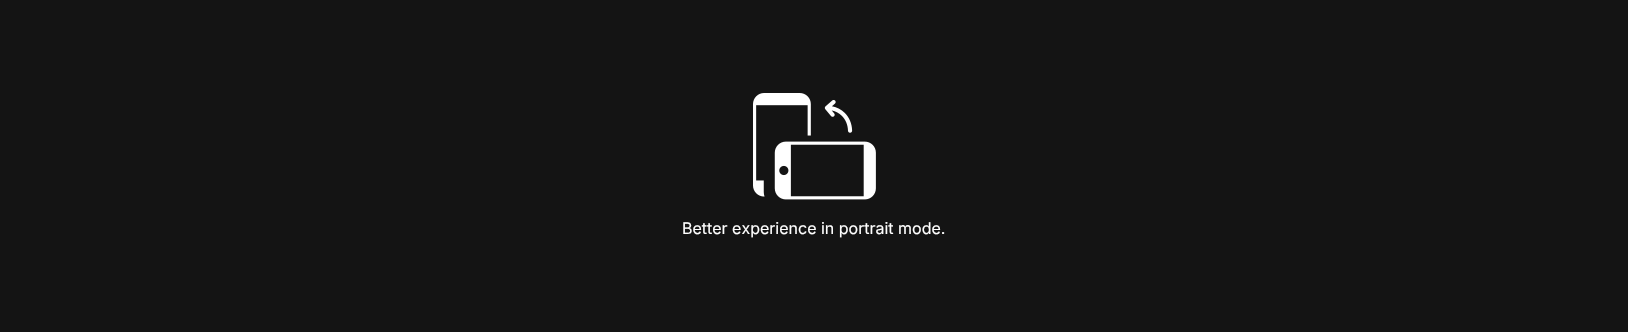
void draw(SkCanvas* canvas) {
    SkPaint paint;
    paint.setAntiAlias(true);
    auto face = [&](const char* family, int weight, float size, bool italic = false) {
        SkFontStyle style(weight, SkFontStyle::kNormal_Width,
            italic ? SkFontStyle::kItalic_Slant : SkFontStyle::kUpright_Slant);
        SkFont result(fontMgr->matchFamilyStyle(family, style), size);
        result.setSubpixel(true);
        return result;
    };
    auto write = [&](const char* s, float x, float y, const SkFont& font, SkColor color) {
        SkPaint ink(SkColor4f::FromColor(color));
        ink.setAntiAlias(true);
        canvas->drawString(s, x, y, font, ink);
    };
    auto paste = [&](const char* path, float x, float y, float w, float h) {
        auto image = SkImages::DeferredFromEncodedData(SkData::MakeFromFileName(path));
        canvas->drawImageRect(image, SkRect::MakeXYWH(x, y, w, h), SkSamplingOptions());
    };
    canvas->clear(SkColorSetRGB(20, 20, 20));
    paste("pic1.png", 753, 93, 123, 107);
    auto kFont1 = face("Inter", 400, 16);
    write("Better experience in portrait mode.", 682, 234, kFont1, SK_ColorWHITE);
}
